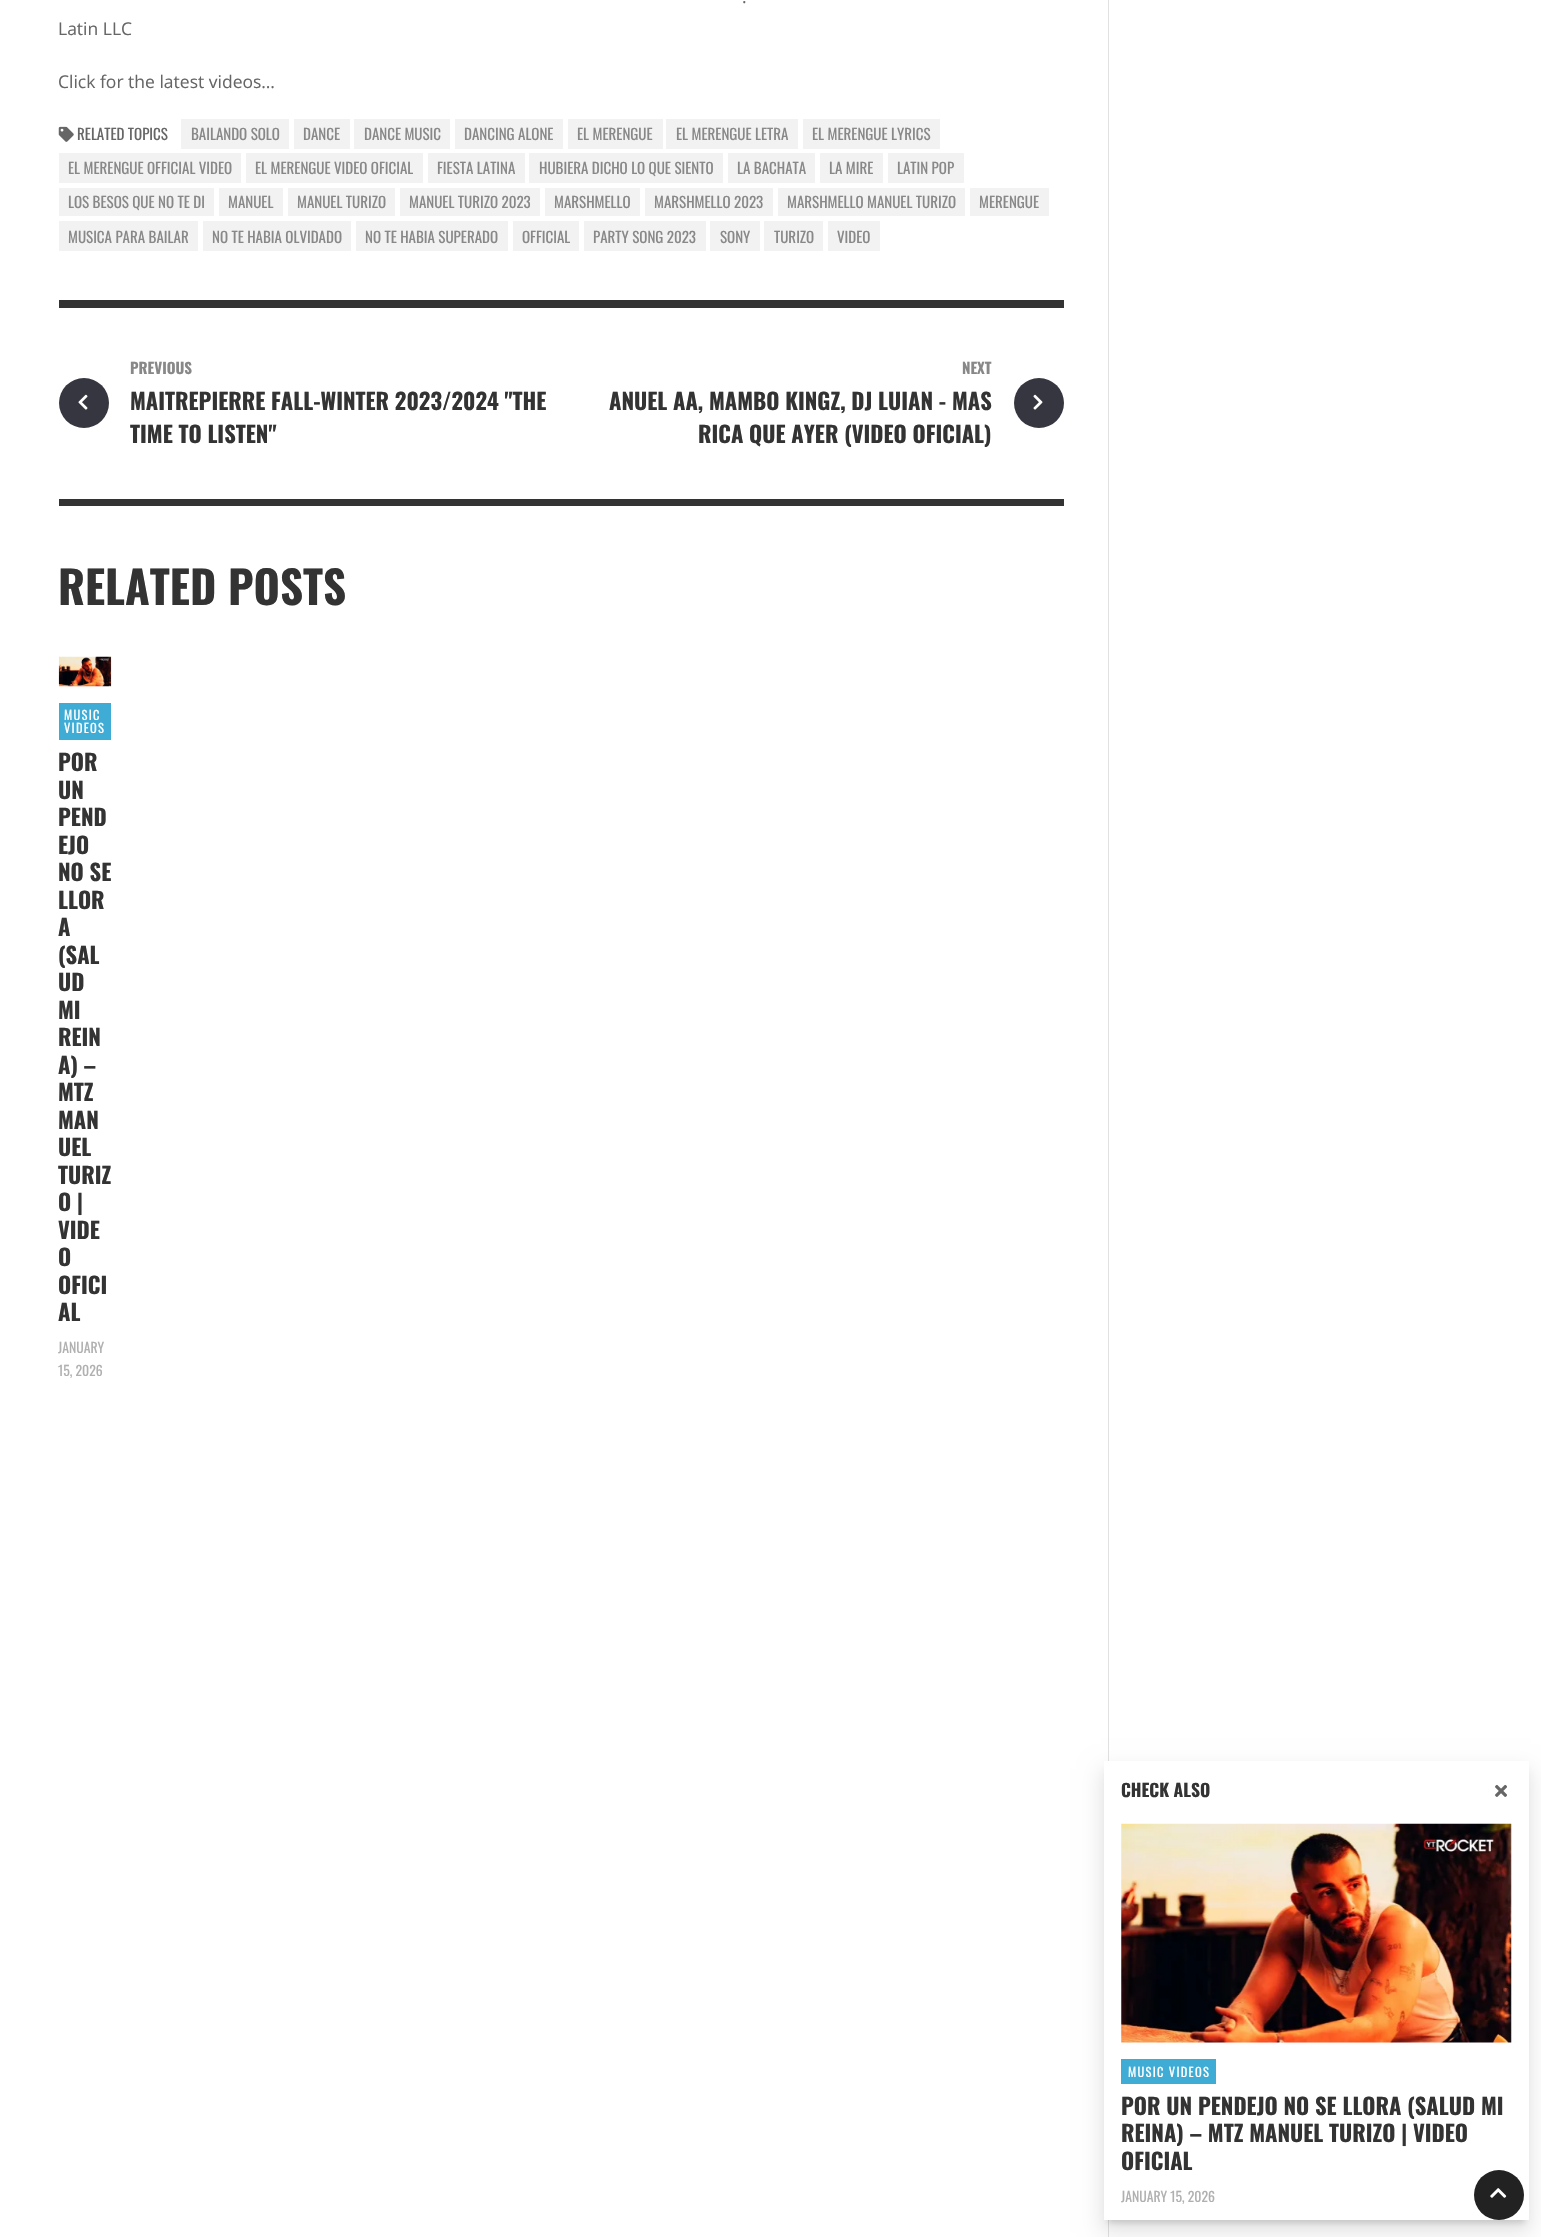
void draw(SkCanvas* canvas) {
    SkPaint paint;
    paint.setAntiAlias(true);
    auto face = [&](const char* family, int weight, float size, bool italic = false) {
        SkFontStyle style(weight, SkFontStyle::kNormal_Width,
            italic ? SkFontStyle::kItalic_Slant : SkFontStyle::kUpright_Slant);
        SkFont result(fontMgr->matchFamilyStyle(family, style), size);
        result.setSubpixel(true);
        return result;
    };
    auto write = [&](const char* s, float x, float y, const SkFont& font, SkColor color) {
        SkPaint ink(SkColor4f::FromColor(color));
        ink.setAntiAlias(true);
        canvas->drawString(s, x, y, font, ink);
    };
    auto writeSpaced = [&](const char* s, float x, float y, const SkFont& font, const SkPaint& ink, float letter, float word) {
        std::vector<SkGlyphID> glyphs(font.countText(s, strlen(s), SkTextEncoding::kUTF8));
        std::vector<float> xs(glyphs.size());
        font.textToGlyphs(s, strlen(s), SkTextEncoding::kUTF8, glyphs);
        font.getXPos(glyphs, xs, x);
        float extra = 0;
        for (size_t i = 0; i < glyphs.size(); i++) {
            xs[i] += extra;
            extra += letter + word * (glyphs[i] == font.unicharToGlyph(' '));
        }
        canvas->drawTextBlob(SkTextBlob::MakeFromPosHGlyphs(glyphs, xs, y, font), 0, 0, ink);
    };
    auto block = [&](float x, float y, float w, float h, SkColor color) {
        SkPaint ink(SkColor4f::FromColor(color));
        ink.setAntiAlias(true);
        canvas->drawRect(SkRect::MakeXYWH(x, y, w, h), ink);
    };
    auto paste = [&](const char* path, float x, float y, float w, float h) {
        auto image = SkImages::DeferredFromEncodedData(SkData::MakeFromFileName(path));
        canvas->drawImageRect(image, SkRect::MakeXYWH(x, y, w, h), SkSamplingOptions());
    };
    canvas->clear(SK_ColorWHITE);
    block(1108, 0, 1, 2237, SkColorSetRGB(225, 225, 225));
    auto kFont1 = face("Open Sans", 400, 17.5f);
    write(".", 742, 3, kFont1, SkColorSetRGB(102, 102, 102));
    write("Latin LLC", 58, 35, kFont1, SkColorSetRGB(102, 102, 102));
    write("Click for the latest videos…", 58, 88, kFont1, SkColorSetRGB(102, 102, 102));
    paste("pic1.png", 58, 126, 16, 16);
    auto kFont2 = face("Oswald", 400, 15);
    write("RELATED TOPICS", 77, 140, kFont2, SkColorSetRGB(102, 102, 102));
    block(181, 119, 108, 30, SkColorSetRGB(242, 242, 242));
    write("BAILANDO SOLO", 191, 140, kFont2, SkColorSetRGB(136, 136, 136));
    block(294, 119, 56, 30, SkColorSetRGB(242, 242, 242));
    write("DANCE", 303, 140, kFont2, SkColorSetRGB(136, 136, 136));
    block(354, 119, 96, 30, SkColorSetRGB(242, 242, 242));
    write("DANCE MUSIC", 364, 140, kFont2, SkColorSetRGB(136, 136, 136));
    block(455, 119, 108, 30, SkColorSetRGB(242, 242, 242));
    write("DANCING ALONE", 464, 140, kFont2, SkColorSetRGB(136, 136, 136));
    block(568, 119, 95, 30, SkColorSetRGB(242, 242, 242));
    write("EL MERENGUE", 577, 140, kFont2, SkColorSetRGB(136, 136, 136));
    block(666, 119, 132, 30, SkColorSetRGB(242, 242, 242));
    write("EL MERENGUE LETRA", 676, 140, kFont2, SkColorSetRGB(136, 136, 136));
    block(803, 119, 137, 30, SkColorSetRGB(242, 242, 242));
    write("EL MERENGUE LYRICS", 812, 140, kFont2, SkColorSetRGB(136, 136, 136));
    block(59, 153, 182, 30, SkColorSetRGB(242, 242, 242));
    write("EL MERENGUE OFFICIAL VIDEO", 68, 174, kFont2, SkColorSetRGB(136, 136, 136));
    block(246, 153, 177, 30, SkColorSetRGB(242, 242, 242));
    write("EL MERENGUE VIDEO OFICIAL", 255, 174, kFont2, SkColorSetRGB(136, 136, 136));
    block(428, 153, 97, 30, SkColorSetRGB(242, 242, 242));
    write("FIESTA LATINA", 437, 174, kFont2, SkColorSetRGB(136, 136, 136));
    block(529, 153, 194, 30, SkColorSetRGB(242, 242, 242));
    write("HUBIERA DICHO LO QUE SIENTO", 539, 174, kFont2, SkColorSetRGB(136, 136, 136));
    block(728, 153, 87, 30, SkColorSetRGB(242, 242, 242));
    write("LA BACHATA", 737, 174, kFont2, SkColorSetRGB(136, 136, 136));
    block(820, 153, 63, 30, SkColorSetRGB(242, 242, 242));
    write("LA MIRE", 829, 174, kFont2, SkColorSetRGB(136, 136, 136));
    block(888, 153, 76, 30, SkColorSetRGB(242, 242, 242));
    write("LATIN POP", 897, 174, kFont2, SkColorSetRGB(136, 136, 136));
    block(59, 188, 155, 28, SkColorSetRGB(242, 242, 242));
    write("LOS BESOS QUE NO TE DI", 68, 208, kFont2, SkColorSetRGB(136, 136, 136));
    block(219, 188, 64, 28, SkColorSetRGB(242, 242, 242));
    write("MANUEL", 228, 208, kFont2, SkColorSetRGB(136, 136, 136));
    block(288, 188, 107, 28, SkColorSetRGB(242, 242, 242));
    write("MANUEL TURIZO", 297, 208, kFont2, SkColorSetRGB(136, 136, 136));
    block(400, 188, 140, 28, SkColorSetRGB(242, 242, 242));
    write("MANUEL TURIZO 2023", 409, 208, kFont2, SkColorSetRGB(136, 136, 136));
    block(545, 188, 95, 28, SkColorSetRGB(242, 242, 242));
    write("MARSHMELLO", 554, 208, kFont2, SkColorSetRGB(136, 136, 136));
    block(645, 188, 128, 28, SkColorSetRGB(242, 242, 242));
    write("MARSHMELLO 2023", 654, 208, kFont2, SkColorSetRGB(136, 136, 136));
    block(778, 188, 187, 28, SkColorSetRGB(242, 242, 242));
    write("MARSHMELLO MANUEL TURIZO", 787, 208, kFont2, SkColorSetRGB(136, 136, 136));
    block(970, 188, 79, 28, SkColorSetRGB(242, 242, 242));
    write("MERENGUE", 979, 208, kFont2, SkColorSetRGB(136, 136, 136));
    block(59, 221, 139, 30, SkColorSetRGB(242, 242, 242));
    write("MUSICA PARA BAILAR", 68, 243, kFont2, SkColorSetRGB(136, 136, 136));
    block(203, 221, 148, 30, SkColorSetRGB(242, 242, 242));
    write("NO TE HABIA OLVIDADO", 212, 243, kFont2, SkColorSetRGB(136, 136, 136));
    block(356, 221, 152, 30, SkColorSetRGB(242, 242, 242));
    write("NO TE HABIA SUPERADO", 365, 243, kFont2, SkColorSetRGB(136, 136, 136));
    block(513, 221, 66, 30, SkColorSetRGB(242, 242, 242));
    write("OFFICIAL", 522, 243, kFont2, SkColorSetRGB(136, 136, 136));
    block(584, 221, 122, 30, SkColorSetRGB(242, 242, 242));
    write("PARTY SONG 2023", 593, 243, kFont2, SkColorSetRGB(136, 136, 136));
    block(710, 221, 50, 30, SkColorSetRGB(242, 242, 242));
    write("SONY", 720, 243, kFont2, SkColorSetRGB(136, 136, 136));
    block(764, 221, 59, 30, SkColorSetRGB(242, 242, 242));
    write("TURIZO", 774, 243, kFont2, SkColorSetRGB(136, 136, 136));
    block(828, 221, 52, 30, SkColorSetRGB(242, 242, 242));
    write("VIDEO", 837, 243, kFont2, SkColorSetRGB(136, 136, 136));
    block(59, 300, 1005, 8, SkColorSetRGB(51, 51, 51));
    paint.setColor(SkColorSetRGB(53, 54, 64));
    canvas->drawCircle(84, 403, 25, paint);
    paste("pic2.png", 78, 394, 10, 16);
    auto kFont3 = face("Oswald", 700, 15);
    write("PREVIOUS", 130, 374, kFont3, SkColorSetRGB(136, 136, 136));
    auto kFont4 = face("Oswald", 700, 22.5f);
    write("MAITREPIERRE FALL-WINTER 2023/2024 \"THE", 130, 410, kFont4, SkColorSetRGB(51, 51, 51));
    write("TIME TO LISTEN\"", 130, 443, kFont4, SkColorSetRGB(51, 51, 51));
    write("NEXT", 962, 374, kFont3, SkColorSetRGB(136, 136, 136));
    write("ANUEL AA, MAMBO KINGZ, DJ LUIAN - MAS", 609, 410, kFont4, SkColorSetRGB(51, 51, 51));
    write("RICA QUE AYER (VIDEO OFICIAL)", 698, 443, kFont4, SkColorSetRGB(51, 51, 51));
    canvas->drawCircle(1039, 403, 25, paint);
    paste("pic3.png", 1033, 394, 10, 16);
    block(59, 499, 1005, 7, SkColorSetRGB(51, 51, 51));
    auto kFont5 = face("Oswald", 700, 45);
    write("RELATED POSTS", 58, 605, kFont5, SkColorSetRGB(51, 51, 51));
    paste("pic4.png", 58, 656, 54, 31);
    block(59, 703, 52, 37, SkColorSetRGB(63, 172, 214));
    auto kFont6 = face("Oswald", 400, 12.5f);
    paint.setColor(SK_ColorWHITE);
    writeSpaced("MUSIC", 64, 720, kFont6, paint, 1.25f, 0);
    writeSpaced("VIDEOS", 64, 733, kFont6, paint, 1.25f, 0);
    write("POR", 58, 771, kFont4, SkColorSetRGB(51, 51, 51));
    write("UN", 58, 799, kFont4, SkColorSetRGB(51, 51, 51));
    write("PEND", 58, 826, kFont4, SkColorSetRGB(51, 51, 51));
    write("EJO", 58, 854, kFont4, SkColorSetRGB(51, 51, 51));
    write("NO SE", 58, 881, kFont4, SkColorSetRGB(51, 51, 51));
    write("LLOR", 58, 909, kFont4, SkColorSetRGB(51, 51, 51));
    write("A", 58, 936, kFont4, SkColorSetRGB(51, 51, 51));
    write("(SAL", 58, 964, kFont4, SkColorSetRGB(51, 51, 51));
    write("UD", 58, 991, kFont4, SkColorSetRGB(51, 51, 51));
    write("MI", 58, 1019, kFont4, SkColorSetRGB(51, 51, 51));
    write("REIN", 58, 1046, kFont4, SkColorSetRGB(51, 51, 51));
    write("A) –", 58, 1074, kFont4, SkColorSetRGB(51, 51, 51));
    write("MTZ", 58, 1101, kFont4, SkColorSetRGB(51, 51, 51));
    write("MAN", 58, 1129, kFont4, SkColorSetRGB(51, 51, 51));
    write("UEL", 58, 1156, kFont4, SkColorSetRGB(51, 51, 51));
    write("TURIZ", 58, 1184, kFont4, SkColorSetRGB(51, 51, 51));
    write("O |", 58, 1211, kFont4, SkColorSetRGB(51, 51, 51));
    write("VIDE", 58, 1239, kFont4, SkColorSetRGB(51, 51, 51));
    write("O", 58, 1266, kFont4, SkColorSetRGB(51, 51, 51));
    write("OFICI", 58, 1294, kFont4, SkColorSetRGB(51, 51, 51));
    write("AL", 58, 1321, kFont4, SkColorSetRGB(51, 51, 51));
    auto kFont7 = face("Oswald", 400, 13.75f);
    write("JANUARY", 58, 1353, kFont7, SkColorSetRGB(176, 176, 176));
    write("15, 2026", 58, 1376, kFont7, SkColorSetRGB(176, 176, 176));
    paint.setColor(SkColorSetARGB(38, 0, 0, 0));
    paint.setMaskFilter(SkMaskFilter::MakeBlur(kNormal_SkBlurStyle, 3));
    canvas->drawRect(SkRect::MakeXYWH(1108, 1771, 417, 452), paint);
    paint.setMaskFilter(nullptr);
    paint.setColor(SkColorSetARGB(26, 0, 0, 0));
    paint.setMaskFilter(SkMaskFilter::MakeBlur(kNormal_SkBlurStyle, 10.5f));
    canvas->drawRect(SkRect::MakeXYWH(1101, 1769, 430, 464), paint);
    paint.setMaskFilter(nullptr);
    block(1104, 1761, 425, 459, SK_ColorWHITE);
    auto kFont8 = face("Oswald", 700, 17.5f);
    write("CHECK ALSO", 1121, 1797, kFont8, SkColorSetRGB(51, 51, 51));
    paste("pic5.png", 1495, 1784, 12, 13);
    paste("pic6.png", 1121, 1823, 391, 220);
    block(1121, 2059, 95, 25, SkColorSetRGB(63, 172, 214));
    paint.setColor(SK_ColorWHITE);
    writeSpaced("MUSIC VIDEOS", 1128, 2077, kFont6, paint, 1.25f, 0);
    write("POR UN PENDEJO NO SE LLORA (SALUD MI", 1121, 2115, kFont4, SkColorSetRGB(51, 51, 51));
    write("REINA) – MTZ MANUEL TURIZO | VIDEO", 1121, 2142, kFont4, SkColorSetRGB(51, 51, 51));
    write("OFICIAL", 1121, 2170, kFont4, SkColorSetRGB(51, 51, 51));
    write("JANUARY 15, 2026", 1121, 2202, kFont7, SkColorSetRGB(176, 176, 176));
    paint.setColor(SkColorSetRGB(34, 34, 34));
    canvas->drawCircle(1499, 2195, 25, paint);
    paste("pic7.png", 1490, 2188, 17, 10);
}
